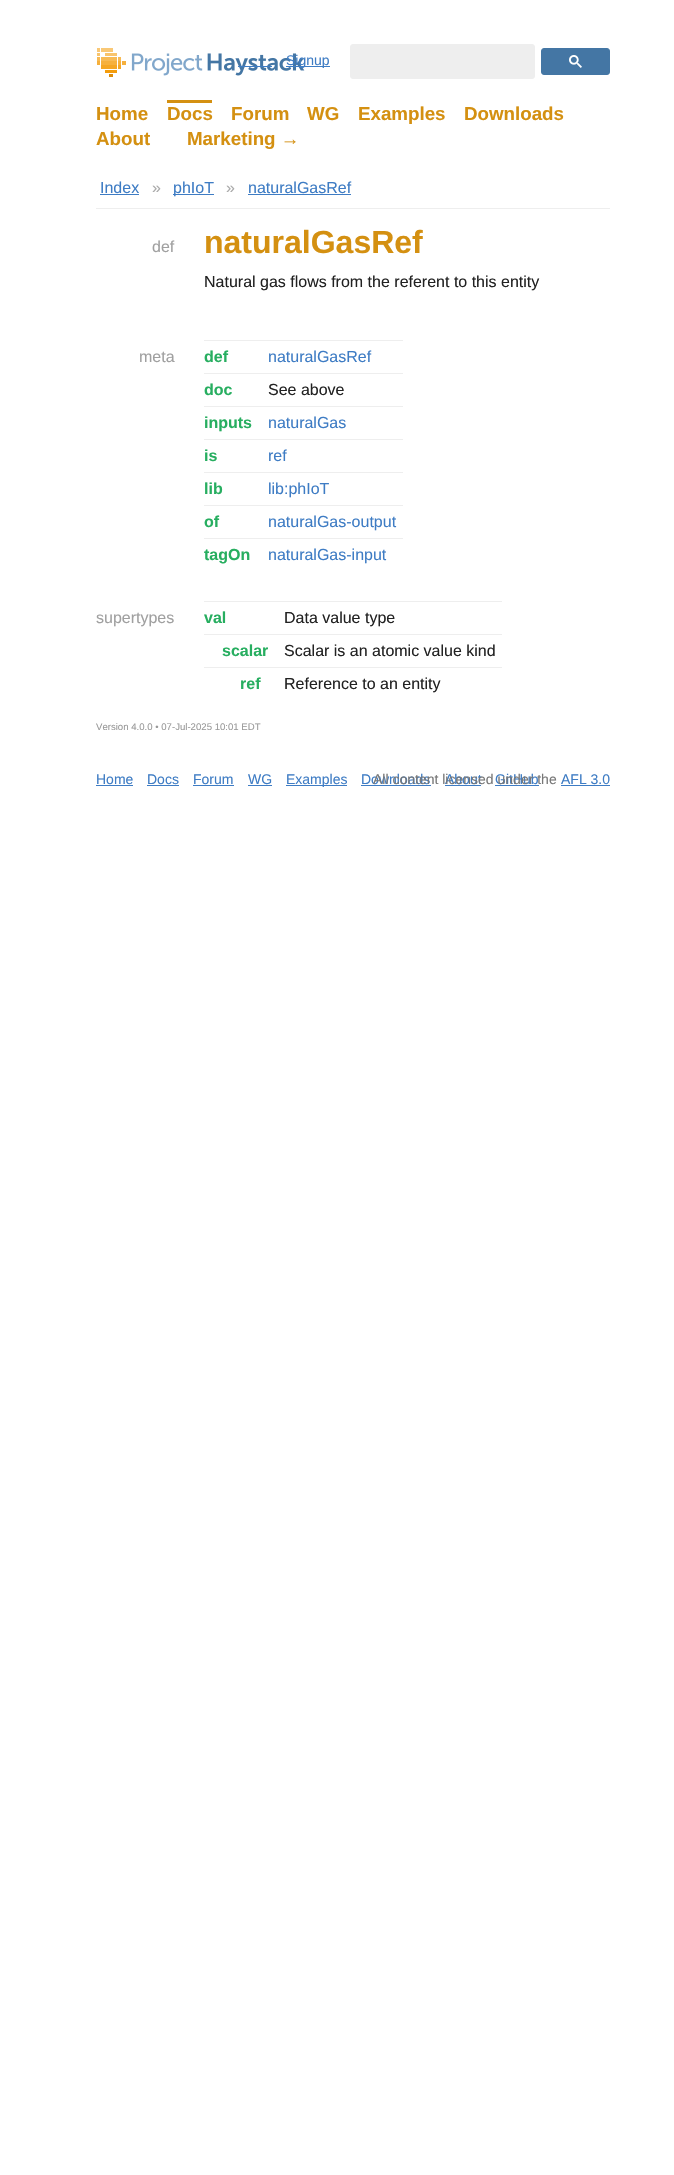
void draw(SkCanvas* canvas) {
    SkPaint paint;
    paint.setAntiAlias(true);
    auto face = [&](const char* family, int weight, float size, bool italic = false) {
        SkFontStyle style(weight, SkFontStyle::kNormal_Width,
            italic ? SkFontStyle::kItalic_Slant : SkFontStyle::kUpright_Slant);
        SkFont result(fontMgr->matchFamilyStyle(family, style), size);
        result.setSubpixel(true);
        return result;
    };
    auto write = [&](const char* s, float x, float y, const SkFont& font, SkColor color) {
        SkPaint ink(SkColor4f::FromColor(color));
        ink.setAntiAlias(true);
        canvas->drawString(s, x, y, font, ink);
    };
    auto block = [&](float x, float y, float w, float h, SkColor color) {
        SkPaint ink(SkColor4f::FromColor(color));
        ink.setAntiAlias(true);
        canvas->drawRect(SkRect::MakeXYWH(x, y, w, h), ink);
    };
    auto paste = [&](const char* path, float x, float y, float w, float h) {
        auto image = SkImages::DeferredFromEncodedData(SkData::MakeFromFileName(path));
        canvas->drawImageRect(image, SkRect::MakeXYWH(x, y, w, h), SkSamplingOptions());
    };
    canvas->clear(SK_ColorWHITE);
    paste("pic1.png", 97, 48, 208, 29);
    block(238, 66, 34, 1, SkColorSetRGB(62, 124, 196));
    block(286, 66, 44, 1, SkColorSetRGB(62, 124, 196));
    auto kFont1 = face("Liberation Sans", 400, 14);
    write("Signup", 286, 65, kFont1, SkColorSetRGB(62, 124, 196));
    paint.setColor(SkColorSetRGB(238, 238, 238));
    canvas->drawRoundRect(SkRect::MakeXYWH(350.5f, 44.5f, 184, 34), 2.5f, 2.5f, paint);
    paint.setStyle(SkPaint::kStroke_Style);
    paint.setStrokeWidth(1);
    canvas->drawRoundRect(SkRect::MakeXYWH(350.5f, 44.5f, 184, 34), 2.5f, 2.5f, paint);
    paint.setStyle(SkPaint::kFill_Style);
    paint.setColor(SkColorSetRGB(68, 118, 164));
    canvas->drawRoundRect(SkRect::MakeXYWH(541.5f, 48.5f, 68, 26), 2.5f, 2.5f, paint);
    paint.setStyle(SkPaint::kStroke_Style);
    canvas->drawRoundRect(SkRect::MakeXYWH(541.5f, 48.5f, 68, 26), 2.5f, 2.5f, paint);
    paste("pic2.png", 569, 55, 13, 13);
    auto kFont2 = face("Liberation Sans", 700, 18.75f);
    write("Home", 96, 120, kFont2, SkColorSetRGB(212, 144, 17));
    write("Docs", 167, 120, kFont2, SkColorSetRGB(212, 144, 17));
    block(167, 100, 45, 3, SkColorSetRGB(212, 144, 17));
    write("Forum", 231, 120, kFont2, SkColorSetRGB(212, 144, 17));
    write("WG", 307, 120, kFont2, SkColorSetRGB(212, 144, 17));
    write("Examples", 358, 120, kFont2, SkColorSetRGB(212, 144, 17));
    write("Downloads", 464, 120, kFont2, SkColorSetRGB(212, 144, 17));
    write("About", 96, 145, kFont2, SkColorSetRGB(212, 144, 17));
    write("Marketing →", 187, 145, kFont2, SkColorSetRGB(212, 144, 17));
    auto kFont3 = face("Liberation Sans", 400, 16);
    write("Index", 100, 193, kFont3, SkColorSetRGB(62, 124, 196));
    block(100, 194, 39, 1, SkColorSetRGB(62, 124, 196));
    write("»", 152, 193, kFont3, SkColorSetRGB(170, 170, 170));
    block(173, 194, 41, 1, SkColorSetRGB(62, 124, 196));
    write("phIoT", 173, 193, kFont3, SkColorSetRGB(62, 124, 196));
    write("»", 226, 193, kFont3, SkColorSetRGB(170, 170, 170));
    write("naturalGasRef", 248, 193, kFont3, SkColorSetRGB(62, 124, 196));
    block(248, 194, 103, 1, SkColorSetRGB(62, 124, 196));
    block(96, 208, 514, 1, SkColorSetRGB(238, 238, 238));
    write("def", 152, 252, kFont3, SkColorSetRGB(160, 160, 160));
    auto kFont4 = face("Liberation Sans", 700, 32);
    write("naturalGasRef", 204, 253, kFont4, SkColorSetRGB(212, 144, 17));
    write("Natural gas flows from the referent to this entity", 204, 287, kFont3, SkColorSetRGB(34, 34, 34));
    write("meta", 139, 362, kFont3, SkColorSetRGB(160, 160, 160));
    block(204, 340, 199, 1, SkColorSetRGB(238, 238, 238));
    auto kFont5 = face("Liberation Sans", 700, 16);
    write("def", 204, 362, kFont5, SkColorSetRGB(39, 174, 96));
    write("naturalGasRef", 268, 362, kFont3, SkColorSetRGB(62, 124, 196));
    block(204, 373, 199, 1, SkColorSetRGB(238, 238, 238));
    write("doc", 204, 395, kFont5, SkColorSetRGB(39, 174, 96));
    write("See above", 268, 395, kFont3, SkColorSetRGB(34, 34, 34));
    block(204, 406, 199, 1, SkColorSetRGB(238, 238, 238));
    write("inputs", 204, 428, kFont5, SkColorSetRGB(39, 174, 96));
    write("naturalGas", 268, 428, kFont3, SkColorSetRGB(62, 124, 196));
    block(204, 439, 199, 1, SkColorSetRGB(238, 238, 238));
    write("is", 204, 461, kFont5, SkColorSetRGB(39, 174, 96));
    write("ref", 268, 461, kFont3, SkColorSetRGB(62, 124, 196));
    block(204, 472, 199, 1, SkColorSetRGB(238, 238, 238));
    write("lib", 204, 494, kFont5, SkColorSetRGB(39, 174, 96));
    write("lib:phIoT", 268, 494, kFont3, SkColorSetRGB(62, 124, 196));
    block(204, 505, 199, 1, SkColorSetRGB(238, 238, 238));
    write("of", 204, 527, kFont5, SkColorSetRGB(39, 174, 96));
    write("naturalGas-output", 268, 527, kFont3, SkColorSetRGB(62, 124, 196));
    block(204, 538, 199, 1, SkColorSetRGB(238, 238, 238));
    write("tagOn", 204, 560, kFont5, SkColorSetRGB(39, 174, 96));
    write("naturalGas-input", 268, 560, kFont3, SkColorSetRGB(62, 124, 196));
    write("supertypes", 96, 623, kFont3, SkColorSetRGB(160, 160, 160));
    block(204, 601, 298, 1, SkColorSetRGB(238, 238, 238));
    write("val", 204, 623, kFont5, SkColorSetRGB(39, 174, 96));
    write("Data value type", 284, 623, kFont3, SkColorSetRGB(34, 34, 34));
    block(204, 634, 298, 1, SkColorSetRGB(238, 238, 238));
    write("scalar", 222, 656, kFont5, SkColorSetRGB(39, 174, 96));
    write("Scalar is an atomic value kind", 284, 656, kFont3, SkColorSetRGB(34, 34, 34));
    block(204, 667, 298, 1, SkColorSetRGB(238, 238, 238));
    write("ref", 240, 689, kFont5, SkColorSetRGB(39, 174, 96));
    write("Reference to an entity", 284, 689, kFont3, SkColorSetRGB(34, 34, 34));
    auto kFont6 = face("Liberation Sans", 400, 9.6f);
    write("Version 4.0.0 • 07-Jul-2025 10:01 EDT", 96, 730, kFont6, SkColorSetRGB(153, 153, 153));
    write("Home", 96, 784, kFont1, SkColorSetRGB(62, 124, 196));
    block(96, 785, 37, 1, SkColorSetRGB(62, 124, 196));
    write("Docs", 147, 784, kFont1, SkColorSetRGB(62, 124, 196));
    block(147, 785, 32, 1, SkColorSetRGB(62, 124, 196));
    write("Forum", 193, 784, kFont1, SkColorSetRGB(62, 124, 196));
    block(193, 785, 41, 1, SkColorSetRGB(62, 124, 196));
    write("WG", 248, 784, kFont1, SkColorSetRGB(62, 124, 196));
    block(248, 785, 24, 1, SkColorSetRGB(62, 124, 196));
    block(286, 785, 61, 1, SkColorSetRGB(62, 124, 196));
    write("Examples", 286, 784, kFont1, SkColorSetRGB(62, 124, 196));
    write("Downloads", 361, 784, kFont1, SkColorSetRGB(62, 124, 196));
    block(361, 785, 70, 1, SkColorSetRGB(62, 124, 196));
    write("About", 445, 784, kFont1, SkColorSetRGB(62, 124, 196));
    block(445, 785, 36, 1, SkColorSetRGB(62, 124, 196));
    write("GitHub", 495, 784, kFont1, SkColorSetRGB(62, 124, 196));
    block(495, 785, 44, 1, SkColorSetRGB(62, 124, 196));
    write("All content licensed under the", 373, 784, kFont1, SkColorSetRGB(119, 119, 119));
    write("AFL 3.0", 561, 784, kFont1, SkColorSetRGB(62, 124, 196));
    block(561, 785, 49, 1, SkColorSetRGB(62, 124, 196));
}
